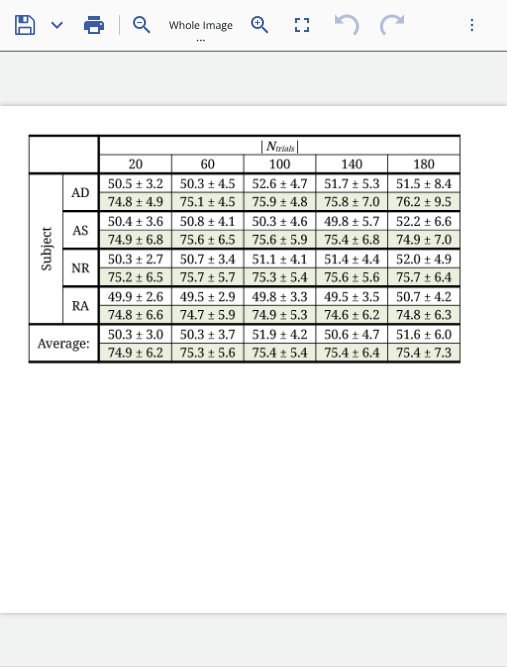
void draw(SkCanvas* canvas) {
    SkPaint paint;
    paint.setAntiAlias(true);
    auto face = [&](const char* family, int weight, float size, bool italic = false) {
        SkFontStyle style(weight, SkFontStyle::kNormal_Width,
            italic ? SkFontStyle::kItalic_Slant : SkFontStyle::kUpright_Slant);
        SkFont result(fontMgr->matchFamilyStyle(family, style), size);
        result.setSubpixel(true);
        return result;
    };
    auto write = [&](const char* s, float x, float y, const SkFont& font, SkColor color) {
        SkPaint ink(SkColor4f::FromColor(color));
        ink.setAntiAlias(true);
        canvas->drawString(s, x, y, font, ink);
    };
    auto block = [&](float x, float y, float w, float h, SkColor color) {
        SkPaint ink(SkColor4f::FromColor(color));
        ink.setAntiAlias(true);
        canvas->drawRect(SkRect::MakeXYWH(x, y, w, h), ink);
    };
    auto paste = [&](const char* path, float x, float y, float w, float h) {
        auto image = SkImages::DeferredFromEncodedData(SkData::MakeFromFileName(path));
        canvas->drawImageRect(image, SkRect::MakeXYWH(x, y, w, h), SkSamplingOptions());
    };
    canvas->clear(SkColorSetRGB(250, 250, 250));
    block(0, 50, 507, 1, SkColorSetRGB(196, 196, 196));
    paste("pic1.png", 15, 15, 20, 20);
    paste("pic2.png", 51, 21, 12, 8);
    paste("pic3.png", 84, 16, 20, 18);
    block(119, 15, 1, 20, SkColorSetRGB(196, 196, 196));
    paste("pic4.png", 133, 16, 18, 18);
    auto kFont1 = face("Open Sans", 400, 10.5f);
    write("Whole Image", 169, 29, kFont1, SkColorSetRGB(38, 50, 56));
    paste("pic5.png", 251, 16, 18, 18);
    auto kFont2 = face("Open Sans", 400, 12);
    write("...", 196, 41, kFont2, SkColorSetRGB(38, 50, 56));
    paste("pic6.png", 295, 18, 14, 14);
    paste("pic7.png", 335, 14, 24, 22);
    paste("pic8.png", 380, 14, 24, 22);
    paste("pic9.png", 470, 18, 4, 14);
    block(0, 51, 507, 1, SkColorSetRGB(114, 140, 195));
    block(0, 52, 507, 614, SkColorSetRGB(241, 243, 243));
    paint.setColor(SkColorSetARGB(77, 0, 0, 0));
    paint.setMaskFilter(SkMaskFilter::MakeBlur(kNormal_SkBlurStyle, 2.5f));
    canvas->drawRect(SkRect::MakeXYWH(0, 106, 507, 507), paint);
    paint.setMaskFilter(nullptr);
    paste("pic10.png", 0, 106, 507, 507);
    block(0, 666, 507, 1, SkColorSetRGB(219, 219, 219));
}
